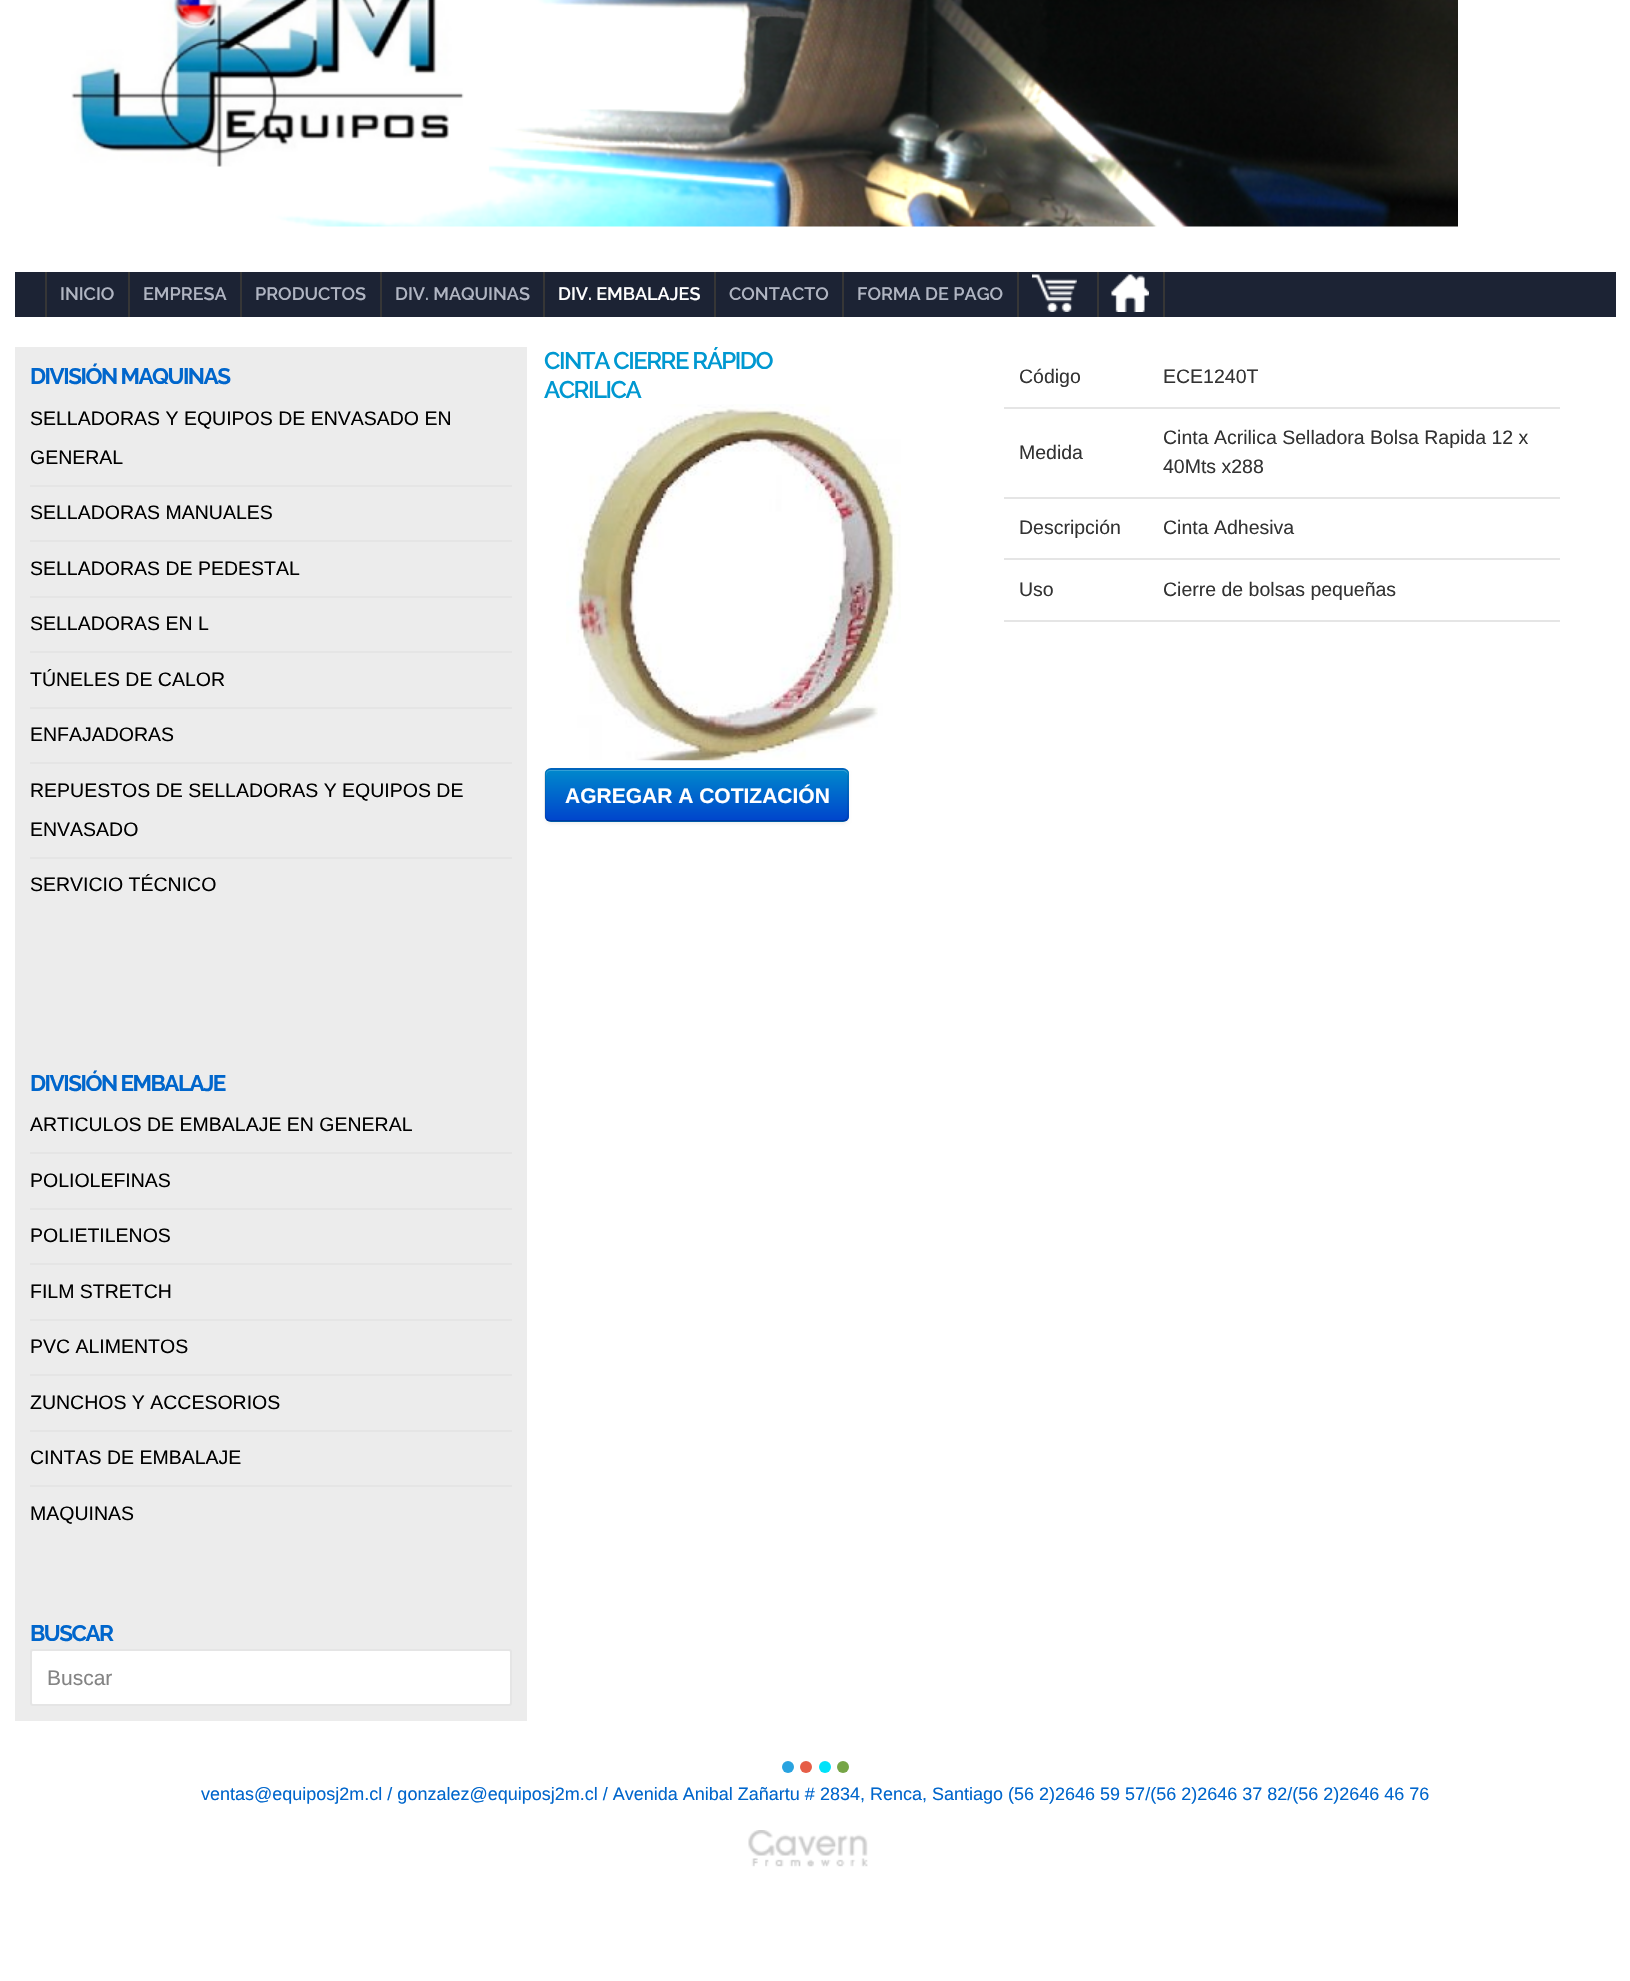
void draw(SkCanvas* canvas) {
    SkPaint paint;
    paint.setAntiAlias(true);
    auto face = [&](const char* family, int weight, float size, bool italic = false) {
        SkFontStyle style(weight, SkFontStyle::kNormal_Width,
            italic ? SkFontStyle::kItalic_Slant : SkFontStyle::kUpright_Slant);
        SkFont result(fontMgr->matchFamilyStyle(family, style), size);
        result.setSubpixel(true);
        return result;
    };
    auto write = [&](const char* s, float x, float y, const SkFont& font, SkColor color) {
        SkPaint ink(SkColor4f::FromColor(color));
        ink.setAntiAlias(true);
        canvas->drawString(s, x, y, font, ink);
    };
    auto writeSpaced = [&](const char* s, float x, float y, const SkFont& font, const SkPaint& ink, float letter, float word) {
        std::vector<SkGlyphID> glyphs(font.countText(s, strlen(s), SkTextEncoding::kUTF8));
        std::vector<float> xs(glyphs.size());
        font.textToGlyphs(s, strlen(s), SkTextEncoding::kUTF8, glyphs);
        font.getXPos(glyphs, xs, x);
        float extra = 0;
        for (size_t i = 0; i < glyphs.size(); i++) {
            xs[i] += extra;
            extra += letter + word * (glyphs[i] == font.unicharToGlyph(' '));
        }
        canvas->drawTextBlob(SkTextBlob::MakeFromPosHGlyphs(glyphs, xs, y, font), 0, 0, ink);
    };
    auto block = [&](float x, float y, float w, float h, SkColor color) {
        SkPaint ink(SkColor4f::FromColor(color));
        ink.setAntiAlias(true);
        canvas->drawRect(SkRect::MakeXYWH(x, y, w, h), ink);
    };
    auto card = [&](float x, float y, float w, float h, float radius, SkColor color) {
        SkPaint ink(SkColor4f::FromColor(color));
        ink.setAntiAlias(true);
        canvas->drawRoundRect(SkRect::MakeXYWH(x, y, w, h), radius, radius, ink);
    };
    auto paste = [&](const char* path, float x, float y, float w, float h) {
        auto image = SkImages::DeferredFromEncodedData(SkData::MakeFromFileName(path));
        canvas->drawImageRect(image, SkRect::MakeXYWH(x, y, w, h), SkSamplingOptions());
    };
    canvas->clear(SK_ColorWHITE);
    paste("pic1.png", 71, 0, 1387, 227);
    block(15, 272, 1601, 45, SkColorSetRGB(28, 35, 52));
    block(128, 272, 2, 45, SkColorSetRGB(54, 54, 54));
    block(45, 272, 2, 45, SkColorSetRGB(54, 54, 54));
    auto kFont1 = face("Raleway", 600, 18);
    write("INICIO", 60, 300, kFont1, SkColorSetRGB(176, 181, 194));
    block(240, 272, 2, 45, SkColorSetRGB(54, 54, 54));
    write("EMPRESA", 143, 300, kFont1, SkColorSetRGB(176, 181, 194));
    block(380, 272, 2, 45, SkColorSetRGB(54, 54, 54));
    write("PRODUCTOS", 255, 300, kFont1, SkColorSetRGB(176, 181, 194));
    block(543, 272, 2, 45, SkColorSetRGB(54, 54, 54));
    write("DIV. MAQUINAS", 395, 300, kFont1, SkColorSetRGB(176, 181, 194));
    block(714, 272, 2, 45, SkColorSetRGB(54, 54, 54));
    write("DIV. EMBALAJES", 558, 300, kFont1, SK_ColorWHITE);
    block(842, 272, 2, 45, SkColorSetRGB(54, 54, 54));
    write("CONTACTO", 729, 300, kFont1, SkColorSetRGB(176, 181, 194));
    block(1017, 272, 2, 45, SkColorSetRGB(54, 54, 54));
    write("FORMA DE PAGO", 857, 300, kFont1, SkColorSetRGB(176, 181, 194));
    block(1097, 272, 2, 45, SkColorSetRGB(54, 54, 54));
    paste("pic2.png", 1032, 274, 45, 38);
    block(1163, 272, 2, 45, SkColorSetRGB(54, 54, 54));
    paste("pic3.png", 1111, 274, 38, 38);
    block(15, 347, 512, 1374, SkColorSetRGB(236, 236, 236));
    auto kFont2 = face("Raleway", 700, 22.5f);
    paint.setColor(SkColorSetRGB(0, 102, 204));
    writeSpaced("DIVISIÓN MAQUINAS", 30, 384, kFont2, paint, -1.5f, 0);
    block(30, 485, 482, 2, SkColorSetRGB(229, 229, 229));
    auto kFont3 = face("Liberation Sans", 400, 19.5f);
    write("SELLADORAS Y EQUIPOS DE ENVASADO EN", 30, 425, kFont3, SK_ColorBLACK);
    write("GENERAL", 30, 464, kFont3, SK_ColorBLACK);
    block(30, 540, 482, 2, SkColorSetRGB(229, 229, 229));
    write("SELLADORAS MANUALES", 30, 519, kFont3, SK_ColorBLACK);
    block(30, 596, 482, 2, SkColorSetRGB(229, 229, 229));
    write("SELLADORAS DE PEDESTAL", 30, 575, kFont3, SK_ColorBLACK);
    block(30, 651, 482, 2, SkColorSetRGB(229, 229, 229));
    write("SELLADORAS EN L", 30, 630, kFont3, SK_ColorBLACK);
    block(30, 707, 482, 2, SkColorSetRGB(229, 229, 229));
    write("TÚNELES DE CALOR", 30, 686, kFont3, SK_ColorBLACK);
    block(30, 762, 482, 2, SkColorSetRGB(229, 229, 229));
    write("ENFAJADORAS", 30, 741, kFont3, SK_ColorBLACK);
    block(30, 857, 482, 2, SkColorSetRGB(229, 229, 229));
    write("REPUESTOS DE SELLADORAS Y EQUIPOS DE", 30, 797, kFont3, SK_ColorBLACK);
    write("ENVASADO", 30, 836, kFont3, SK_ColorBLACK);
    write("SERVICIO TÉCNICO", 30, 891, kFont3, SK_ColorBLACK);
    writeSpaced("DIVISIÓN EMBALAJE", 30, 1091, kFont2, paint, -1.5f, 0);
    block(30, 1152, 482, 2, SkColorSetRGB(229, 229, 229));
    write("ARTICULOS DE EMBALAJE EN GENERAL", 30, 1131, kFont3, SK_ColorBLACK);
    block(30, 1208, 482, 2, SkColorSetRGB(229, 229, 229));
    write("POLIOLEFINAS", 30, 1187, kFont3, SK_ColorBLACK);
    block(30, 1263, 482, 2, SkColorSetRGB(229, 229, 229));
    write("POLIETILENOS", 30, 1242, kFont3, SK_ColorBLACK);
    block(30, 1319, 482, 2, SkColorSetRGB(229, 229, 229));
    write("FILM STRETCH", 30, 1298, kFont3, SK_ColorBLACK);
    block(30, 1374, 482, 2, SkColorSetRGB(229, 229, 229));
    write("PVC ALIMENTOS", 30, 1353, kFont3, SK_ColorBLACK);
    block(30, 1430, 482, 2, SkColorSetRGB(229, 229, 229));
    write("ZUNCHOS Y ACCESORIOS", 30, 1409, kFont3, SK_ColorBLACK);
    block(30, 1485, 482, 2, SkColorSetRGB(229, 229, 229));
    write("CINTAS DE EMBALAJE", 30, 1464, kFont3, SK_ColorBLACK);
    write("MAQUINAS", 30, 1520, kFont3, SK_ColorBLACK);
    writeSpaced("BUSCAR", 30, 1641, kFont2, paint, -1.5f, 0);
    paint.setColor(SK_ColorWHITE);
    canvas->drawRoundRect(SkRect::MakeXYWH(31, 1650, 480, 55), 2, 2, paint);
    paint.setStyle(SkPaint::kStroke_Style);
    paint.setStrokeWidth(2);
    paint.setColor(SkColorSetRGB(229, 229, 229));
    canvas->drawRoundRect(SkRect::MakeXYWH(31, 1650, 480, 55), 2, 2, paint);
    auto kFont4 = face("Liberation Sans", 400, 21);
    write("Buscar", 47, 1685, kFont4, SkColorSetRGB(132, 132, 132));
    auto kFont5 = face("Raleway", 600, 24);
    paint.setStyle(SkPaint::kFill_Style);
    paint.setColor(SkColorSetRGB(0, 152, 209));
    writeSpaced("CINTA CIERRE RÁPIDO", 544, 369, kFont5, paint, -1.5f, 0);
    writeSpaced("ACRILICA", 544, 398, kFont5, paint, -1.5f, 0);
    paste("pic4.png", 566, 404, 335, 357);
    paint.setColor(SkColorSetARGB(13, 0, 0, 0));
    paint.setMaskFilter(SkMaskFilter::MakeBlur(kNormal_SkBlurStyle, 1.5f));
    canvas->drawRoundRect(SkRect::MakeXYWH(545, 770, 304, 54), 6, 6, paint);
    paint.setMaskFilter(nullptr);
    card(545, 768, 304, 54, 6, SkColorSetRGB(0, 109, 204));
    canvas->save();
    canvas->clipPath(SkPathBuilder().moveTo(551, 768).lineTo(843, 768).cubicTo(846.5f, 768, 849, 770.5f, 849, 774).lineTo(849, 816).cubicTo(849, 819.5f, 846.5f, 822, 843, 822).lineTo(551, 822).cubicTo(547.5f, 822, 545, 819.5f, 545, 816).lineTo(545, 774).cubicTo(545, 770.5f, 547.5f, 768, 551, 768).close().detach(), true);
    {
        const SkColor colors[] = {SkColorSetRGB(0, 136, 204), SkColorSetRGB(0, 68, 204)};
        const float stops[] = {0, 1};
        const SkPoint ends[] = {{697, 770}, {697, 821}};
        paint.setShader(SkGradientShader::MakeLinear(ends, colors, stops, 2, SkTileMode::kClamp));
        paint.setAlpha(255);
    }
    canvas->drawRect(SkRect::MakeXYWH(545, 770, 304, 51), paint);
    canvas->restore();
    paint.setShader(nullptr);
    paint.setColor(SkColorSetARGB(51, 255, 255, 255));
    canvas->drawPath(SkPathBuilder().moveTo(550, 771).lineTo(843, 771).cubicTo(845, 771, 848, 773, 848, 776).lineTo(848, 775).cubicTo(848, 772, 846, 770, 843, 770).lineTo(551, 770).cubicTo(548, 770, 546, 772, 546, 775).lineTo(546, 776).cubicTo(546, 773, 548, 771, 550, 771).close().detach(), paint);
    paint.setStyle(SkPaint::kStroke_Style);
    paint.setStrokeWidth(1.5f);
    paint.setColor(SkColorSetARGB(64, 0, 0, 0));
    canvas->drawPath(SkPathBuilder().moveTo(846.5f, 819.5f).cubicTo(845.5f, 820.5f, 844.5f, 821, 843, 821).lineTo(550.5f, 821).cubicTo(549, 821, 548, 820.5f, 547, 819.5f).detach(), paint);
    paint.setColor(SkColorSetARGB(26, 0, 0, 0));
    canvas->drawPath(SkPathBuilder().moveTo(547, 819.5f).cubicTo(546, 818.5f, 545, 817.5f, 545, 816).lineTo(545, 774).cubicTo(545, 772.5f, 546, 771.5f, 547, 770.5f).cubicTo(548, 769.5f, 549, 769, 550.5f, 769).lineTo(843, 769).cubicTo(844.5f, 769, 845.5f, 769.5f, 846.5f, 770.5f).cubicTo(847.5f, 771.5f, 848, 772.5f, 848, 774).lineTo(848, 816).cubicTo(848, 817.5f, 847.5f, 818.5f, 846.5f, 819.5f).detach(), paint);
    auto kFont6 = face("Liberation Sans", 700, 21);
    write("AGREGAR A COTIZACIÓN", 565, 803, kFont6, SK_ColorWHITE);
    write("Código", 1019, 383, kFont3, SkColorSetRGB(51, 51, 51));
    block(1004, 407, 556, 2, SkColorSetRGB(229, 229, 229));
    write("ECE1240T", 1163, 383, kFont3, SkColorSetRGB(51, 51, 51));
    write("Medida", 1019, 459, kFont3, SkColorSetRGB(51, 51, 51));
    block(1004, 497, 556, 2, SkColorSetRGB(229, 229, 229));
    write("Cinta Acrilica Selladora Bolsa Rapida 12 x", 1163, 444, kFont3, SkColorSetRGB(51, 51, 51));
    write("40Mts x288", 1163, 473, kFont3, SkColorSetRGB(51, 51, 51));
    write("Descripción", 1019, 534, kFont3, SkColorSetRGB(51, 51, 51));
    block(1004, 558, 556, 2, SkColorSetRGB(229, 229, 229));
    write("Cinta Adhesiva", 1163, 534, kFont3, SkColorSetRGB(51, 51, 51));
    write("Uso", 1019, 596, kFont3, SkColorSetRGB(51, 51, 51));
    block(1004, 620, 556, 2, SkColorSetRGB(229, 229, 229));
    write("Cierre de bolsas pequeñas", 1163, 596, kFont3, SkColorSetRGB(51, 51, 51));
    paint.setStyle(SkPaint::kFill_Style);
    paint.setColor(SkColorSetRGB(41, 163, 224));
    canvas->drawCircle(788, 1767, 6, paint);
    paint.setColor(SkColorSetRGB(230, 94, 71));
    canvas->drawCircle(806, 1767, 6, paint);
    paint.setColor(SkColorSetRGB(0, 226, 249));
    canvas->drawCircle(825, 1767, 6, paint);
    paint.setColor(SkColorSetRGB(118, 165, 70));
    canvas->drawCircle(843, 1767, 6, paint);
    auto kFont7 = face("Liberation Sans", 400, 18);
    write("ventas@equiposj2m.cl / gonzalez@equiposj2m.cl / Avenida Anibal Zañartu # 2834, Renca, Santiago (56 2)2646 59 57/(56 2)2646 37 82/(56 2)2646 46 76", 201, 1800, kFont7, SkColorSetRGB(0, 102, 204));
    paste("pic5.png", 748, 1830, 120, 37);
}
